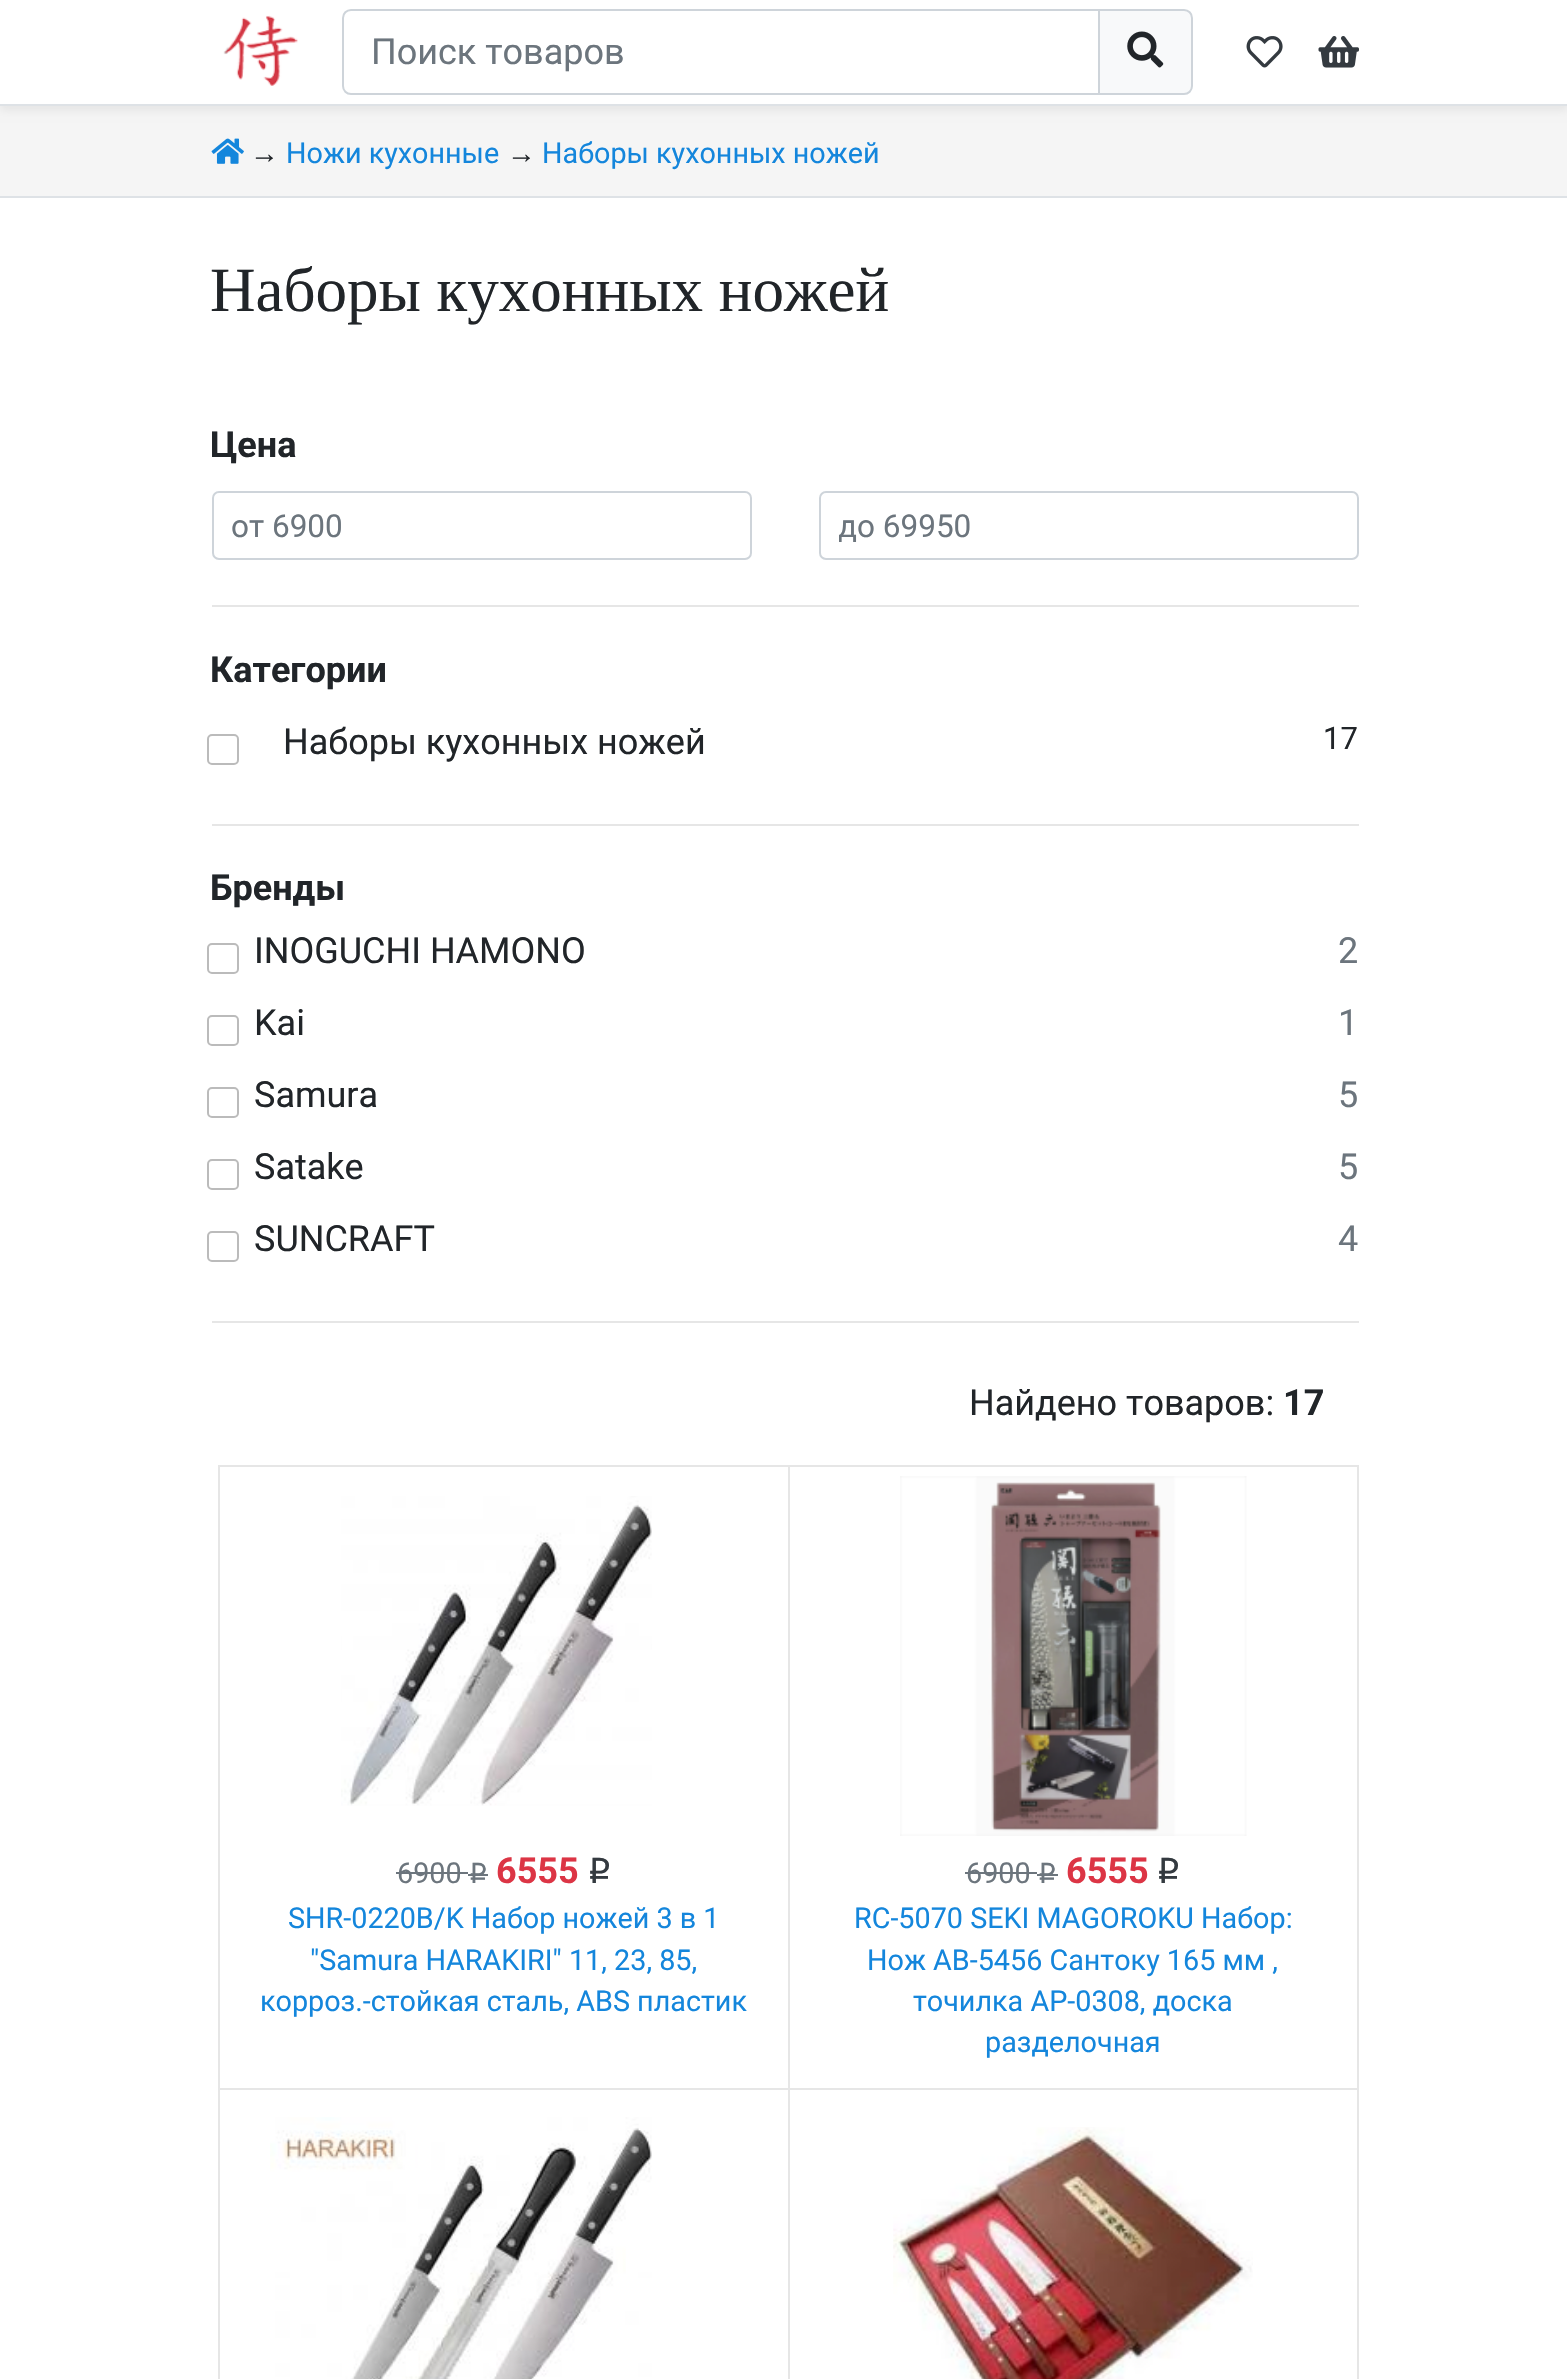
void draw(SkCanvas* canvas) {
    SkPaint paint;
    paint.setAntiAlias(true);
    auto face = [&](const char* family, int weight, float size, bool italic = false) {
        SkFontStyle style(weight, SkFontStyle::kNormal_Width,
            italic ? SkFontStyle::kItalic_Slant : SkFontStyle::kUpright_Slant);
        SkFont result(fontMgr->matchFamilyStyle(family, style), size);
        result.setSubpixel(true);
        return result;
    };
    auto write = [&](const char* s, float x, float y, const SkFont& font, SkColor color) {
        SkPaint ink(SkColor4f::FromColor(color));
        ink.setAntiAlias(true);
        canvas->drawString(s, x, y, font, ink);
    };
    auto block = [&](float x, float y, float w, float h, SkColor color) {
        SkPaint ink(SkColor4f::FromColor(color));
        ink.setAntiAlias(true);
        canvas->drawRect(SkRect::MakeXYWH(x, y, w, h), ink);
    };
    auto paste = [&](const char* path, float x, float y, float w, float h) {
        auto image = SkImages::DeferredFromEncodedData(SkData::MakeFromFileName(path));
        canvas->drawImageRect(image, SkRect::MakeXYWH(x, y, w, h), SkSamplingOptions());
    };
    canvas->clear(SK_ColorWHITE);
    block(0, 106, 1567, 90, SkColorSetRGB(245, 245, 245));
    paint.setColor(SkColorSetARGB(18, 0, 0, 0));
    paint.setMaskFilter(SkMaskFilter::MakeBlur(kNormal_SkBlurStyle, 4.5f));
    canvas->drawRect(SkRect::MakeXYWH(0, 5, 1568, 105), paint);
    paint.setMaskFilter(nullptr);
    block(0, 0, 1567, 104, SK_ColorWHITE);
    block(0, 104, 1567, 2, SkColorSetRGB(222, 226, 230));
    paste("pic1.png", 223, 15, 75, 71);
    paint.setStyle(SkPaint::kStroke_Style);
    paint.setStrokeWidth(2);
    paint.setColor(SkColorSetRGB(206, 212, 218));
    canvas->drawPath(SkPathBuilder().moveTo(351, 10).lineTo(1099, 10).lineTo(1099, 94).lineTo(351, 94).cubicTo(346.5f, 94, 343, 90.5f, 343, 86).lineTo(343, 18).cubicTo(343, 13.5f, 346.5f, 10, 351, 10).close().detach(), paint);
    auto kFont1 = face("Roboto", 400, 36);
    write("Поиск товаров", 371, 64, kFont1, SkColorSetRGB(108, 117, 125));
    paint.setStyle(SkPaint::kFill_Style);
    paint.setColor(SkColorSetRGB(248, 249, 250));
    canvas->drawPath(SkPathBuilder().moveTo(1099, 10).lineTo(1184, 10).cubicTo(1188.5f, 10, 1192, 13.5f, 1192, 18).lineTo(1192, 86).cubicTo(1192, 90.5f, 1188.5f, 94, 1184, 94).lineTo(1099, 94).close().detach(), paint);
    paint.setStyle(SkPaint::kStroke_Style);
    paint.setColor(SkColorSetRGB(206, 212, 218));
    canvas->drawPath(SkPathBuilder().moveTo(1099, 10).lineTo(1184, 10).cubicTo(1188.5f, 10, 1192, 13.5f, 1192, 18).lineTo(1192, 86).cubicTo(1192, 90.5f, 1188.5f, 94, 1184, 94).lineTo(1099, 94).close().detach(), paint);
    paste("pic2.png", 1127, 31, 37, 37);
    paste("pic3.png", 1246, 36, 37, 32);
    paste("pic4.png", 1318, 36, 41, 32);
    block(0, 196, 1567, 2, SkColorSetRGB(222, 226, 230));
    paste("pic5.png", 211, 138, 33, 26);
    auto kFont2 = face("Liberation Sans", 400, 28.75f);
    write("→", 250, 163, kFont2, SkColorSetRGB(33, 37, 41));
    auto kFont3 = face("Roboto", 400, 28.75f);
    write("Ножи кухонные", 286, 163, kFont3, SkColorSetRGB(20, 134, 220));
    write("→", 507, 163, kFont2, SkColorSetRGB(33, 37, 41));
    write("Наборы кухонных ножей", 542, 163, kFont3, SkColorSetRGB(20, 134, 220));
    auto kFont4 = face("Liberation Serif", 400, 63);
    write("Наборы кухонных ножей", 210, 311, kFont4, SkColorSetRGB(33, 37, 41));
    auto kFont5 = face("Roboto", 700, 36);
    write("Цена", 210, 457, kFont5, SkColorSetRGB(33, 37, 41));
    canvas->drawRoundRect(SkRect::MakeXYWH(213, 492, 538, 67), 6, 6, paint);
    auto kFont6 = face("Roboto", 400, 31.5f);
    write("от 6900", 231, 537, kFont6, SkColorSetRGB(108, 117, 125));
    canvas->drawRoundRect(SkRect::MakeXYWH(820, 492, 538, 67), 6, 6, paint);
    canvas->save();
    canvas->clipRect(SkRect::MakeXYWH(839, 506, 500, 36));
    write("до 69950", 838, 537, kFont6, SkColorSetRGB(108, 117, 125));
    canvas->restore();
    block(212, 605, 1147, 2, SkColorSetRGB(230, 230, 230));
    write("Категории", 210, 682, kFont5, SkColorSetRGB(33, 37, 41));
    paint.setColor(SkColorSetRGB(187, 187, 187));
    canvas->drawRoundRect(SkRect::MakeXYWH(208, 735, 30, 29), 4, 4, paint);
    write("Наборы кухонных ножей", 283, 754, kFont1, SkColorSetRGB(33, 37, 41));
    auto kFont7 = face("Roboto", 400, 31);
    write("17", 1323, 749, kFont7, SkColorSetRGB(33, 37, 41));
    block(212, 824, 1147, 2, SkColorSetRGB(230, 230, 230));
    write("Бренды", 210, 900, kFont5, SkColorSetRGB(33, 37, 41));
    canvas->drawRoundRect(SkRect::MakeXYWH(208, 944, 30, 29), 4, 4, paint);
    write("INOGUCHI HAMONO", 254, 963, kFont1, SkColorSetRGB(33, 37, 41));
    write("2", 1338, 963, kFont1, SkColorSetRGB(108, 117, 125));
    canvas->drawRoundRect(SkRect::MakeXYWH(208, 1016, 30, 29), 4, 4, paint);
    write("Kai", 254, 1035, kFont1, SkColorSetRGB(33, 37, 41));
    write("1", 1338, 1035, kFont1, SkColorSetRGB(108, 117, 125));
    canvas->drawRoundRect(SkRect::MakeXYWH(208, 1088, 30, 29), 4, 4, paint);
    write("Samura", 254, 1107, kFont1, SkColorSetRGB(33, 37, 41));
    write("5", 1338, 1107, kFont1, SkColorSetRGB(108, 117, 125));
    canvas->drawRoundRect(SkRect::MakeXYWH(208, 1160, 30, 29), 4, 4, paint);
    write("Satake", 254, 1179, kFont1, SkColorSetRGB(33, 37, 41));
    write("5", 1338, 1179, kFont1, SkColorSetRGB(108, 117, 125));
    canvas->drawRoundRect(SkRect::MakeXYWH(208, 1232, 30, 29), 4, 4, paint);
    write("SUNСRAFT", 254, 1251, kFont1, SkColorSetRGB(33, 37, 41));
    write("4", 1338, 1251, kFont1, SkColorSetRGB(108, 117, 125));
    block(212, 1321, 1147, 2, SkColorSetRGB(230, 230, 230));
    write("Найдено товаров:", 969, 1415, kFont1, SkColorSetRGB(33, 37, 41));
    write("17", 1283, 1415, kFont5, SkColorSetRGB(33, 37, 41));
    paint.setStyle(SkPaint::kFill_Style);
    paint.setColor(SkColorSetRGB(230, 230, 230));
    canvas->drawPath(SkPathBuilder().moveTo(221, 1465).lineTo(221, 1467).lineTo(790, 1467).lineTo(790, 2088).lineTo(790, 1465).close().detach(), paint);
    canvas->drawPath(SkPathBuilder().moveTo(218, 1465).lineTo(218, 2088).lineTo(220, 2088).lineTo(220, 1467).lineTo(788, 1467).lineTo(788, 1465).close().detach(), paint);
    block(788, 1467, 2, 912, SkColorSetRGB(230, 230, 230));
    paste("pic6.png", 341, 1496, 311, 310);
    write("6900", 397, 1883, kFont3, SkColorSetRGB(108, 117, 125));
    block(396, 1872, 72, 2, SkColorSetRGB(108, 117, 125));
    auto kFont8 = face("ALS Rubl", 400, 28.75f);
    write("q", 469, 1883, kFont8, SkColorSetRGB(108, 117, 125));
    block(468, 1874, 20, 2, SkColorSetRGB(108, 117, 125));
    write("6555", 496, 1883, kFont5, SkColorSetRGB(220, 53, 69));
    auto kFont9 = face("ALS Rubl", 400, 36);
    write("q", 588, 1883, kFont9, SkColorSetRGB(52, 58, 64));
    write("SHR-0220B/K Набор ножей 3 в 1", 288, 1928, kFont3, SkColorSetRGB(20, 134, 220));
    write("\"Samura HARAKIRI\" 11, 23, 85,", 310, 1970, kFont3, SkColorSetRGB(20, 134, 220));
    write("корроз.-стойкая сталь, ABS пластик", 260, 2011, kFont3, SkColorSetRGB(20, 134, 220));
    block(790, 1465, 569, 2, SkColorSetRGB(230, 230, 230));
    block(790, 2088, 569, 2, SkColorSetRGB(230, 230, 230));
    block(1357, 1467, 2, 912, SkColorSetRGB(230, 230, 230));
    paste("pic7.png", 900, 1476, 347, 360);
    write("6900", 966, 1883, kFont3, SkColorSetRGB(108, 117, 125));
    block(965, 1872, 72, 2, SkColorSetRGB(108, 117, 125));
    write("q", 1038, 1883, kFont8, SkColorSetRGB(108, 117, 125));
    block(1037, 1874, 21, 2, SkColorSetRGB(108, 117, 125));
    write("6555", 1066, 1883, kFont5, SkColorSetRGB(220, 53, 69));
    write("q", 1157, 1883, kFont9, SkColorSetRGB(52, 58, 64));
    write("RC-5070 SEKI MAGOROKU Набор:", 854, 1928, kFont3, SkColorSetRGB(20, 134, 220));
    write("Нож AB-5456 Сантоку 165 мм ,", 867, 1970, kFont3, SkColorSetRGB(20, 134, 220));
    write("точилка AP-0308, доска", 913, 2011, kFont3, SkColorSetRGB(20, 134, 220));
    write("разделочная", 985, 2052, kFont3, SkColorSetRGB(20, 134, 220));
    canvas->drawPath(SkPathBuilder().moveTo(218, 2088).lineTo(218, 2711).lineTo(220, 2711).lineTo(220, 2090).lineTo(788, 2090).lineTo(788, 2088).close().detach(), paint);
    paste("pic8.png", 270, 2117, 382, 262);
    paste("pic9.png", 893, 2127, 360, 252);
}
